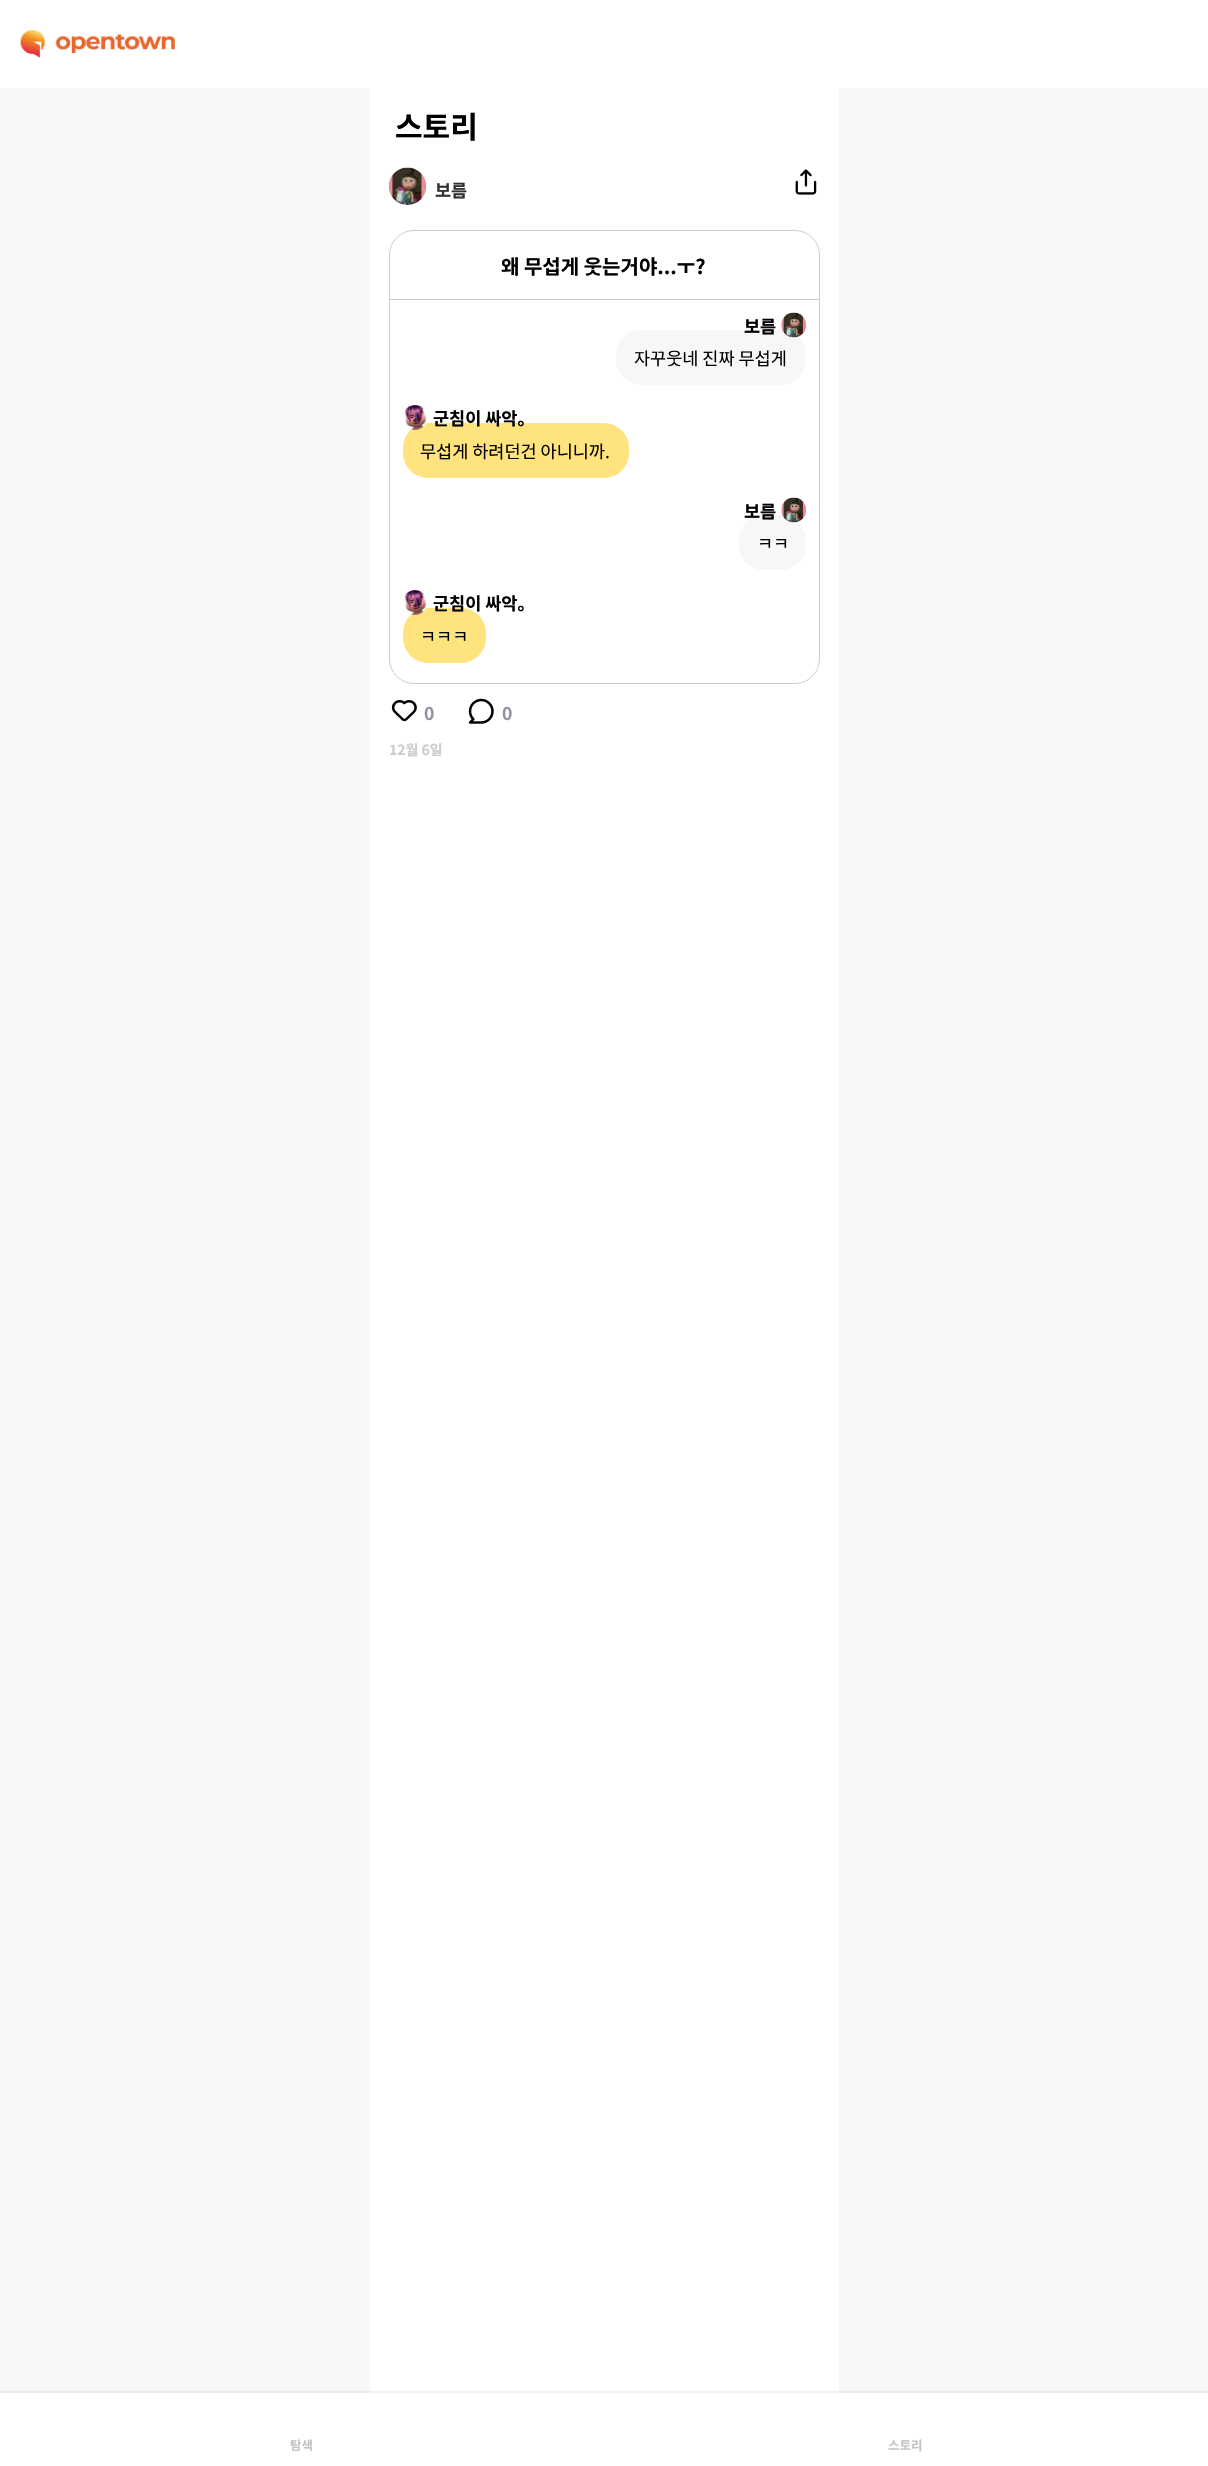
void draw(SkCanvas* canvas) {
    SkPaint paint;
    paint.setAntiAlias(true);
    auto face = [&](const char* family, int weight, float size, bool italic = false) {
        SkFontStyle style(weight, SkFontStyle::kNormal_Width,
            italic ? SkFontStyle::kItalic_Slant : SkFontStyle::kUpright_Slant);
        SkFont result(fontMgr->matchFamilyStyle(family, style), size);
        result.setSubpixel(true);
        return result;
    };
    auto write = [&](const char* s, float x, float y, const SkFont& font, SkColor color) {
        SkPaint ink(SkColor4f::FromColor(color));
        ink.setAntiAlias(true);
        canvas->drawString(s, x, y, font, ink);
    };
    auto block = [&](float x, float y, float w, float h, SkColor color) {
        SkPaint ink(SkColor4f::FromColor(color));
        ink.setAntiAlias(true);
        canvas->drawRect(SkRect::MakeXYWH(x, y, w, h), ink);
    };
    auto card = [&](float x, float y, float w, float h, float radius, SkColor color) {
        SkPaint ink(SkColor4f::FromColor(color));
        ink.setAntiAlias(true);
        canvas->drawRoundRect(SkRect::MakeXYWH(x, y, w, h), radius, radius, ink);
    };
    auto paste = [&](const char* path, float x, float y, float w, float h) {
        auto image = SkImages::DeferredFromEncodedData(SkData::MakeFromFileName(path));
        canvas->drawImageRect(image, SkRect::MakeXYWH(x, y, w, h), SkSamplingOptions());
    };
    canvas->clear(SkColorSetRGB(247, 247, 247));
    block(0, 0, 1208, 88, SK_ColorWHITE);
    paste("pic1.png", 20, 30, 155, 28);
    block(370, 88, 469, 2305, SK_ColorWHITE);
    auto kFont1 = face("Noto Sans KR", 700, 30);
    write("스토리", 395, 138, kFont1, SK_ColorBLACK);
    paste("pic2.png", 388, 167, 39, 38);
    auto kFont2 = face("Noto Sans KR", 700, 17.5f);
    write("보름", 435, 197, kFont2, SkColorSetRGB(51, 51, 51));
    paste("pic3.png", 795, 169, 22, 26);
    paint.setStyle(SkPaint::kStroke_Style);
    paint.setStrokeWidth(1);
    paint.setColor(SkColorSetRGB(204, 204, 204));
    canvas->drawRoundRect(SkRect::MakeXYWH(389.5f, 230.5f, 430, 453), 24.5f, 24.5f, paint);
    block(390, 299, 429, 1, SkColorSetRGB(204, 204, 204));
    auto kFont3 = face("Noto Sans KR", 700, 20);
    write("왜 무섭게 웃는거야...ㅜ?", 501, 274, kFont3, SK_ColorBLACK);
    card(616, 330, 190, 55, 25, SkColorSetRGB(247, 247, 247));
    write("보름", 744, 333, kFont2, SK_ColorBLACK);
    paste("pic4.png", 781, 312, 26, 26);
    auto kFont4 = face("Noto Sans KR", 400, 17.5f);
    write("자꾸웃네 진짜 무섭게", 634, 365, kFont4, SK_ColorBLACK);
    card(403, 423, 226, 55, 25, SkColorSetRGB(255, 227, 126));
    paste("pic5.png", 403, 405, 24, 25);
    write("군침이 싸악。", 433, 425, kFont2, SK_ColorBLACK);
    write("무섭게 하려던건 아니니까.", 420, 458, kFont4, SK_ColorBLACK);
    card(739, 515, 67, 55, 25, SkColorSetRGB(247, 247, 247));
    write("보름", 744, 518, kFont2, SK_ColorBLACK);
    paste("pic6.png", 781, 497, 26, 26);
    write("ㅋㅋ", 757, 550, kFont4, SK_ColorBLACK);
    card(403, 608, 83, 55, 25, SkColorSetRGB(255, 227, 126));
    paste("pic5.png", 403, 590, 24, 25);
    write("군침이 싸악。", 433, 610, kFont2, SK_ColorBLACK);
    write("ㅋㅋㅋ", 420, 643, kFont4, SK_ColorBLACK);
    paste("pic7.png", 391, 700, 26, 22);
    write("0", 424, 720, kFont2, SkColorSetRGB(143, 146, 161));
    paste("pic8.png", 468, 698, 26, 26);
    write("0", 502, 720, kFont2, SkColorSetRGB(143, 146, 161));
    auto kFont5 = face("Noto Sans KR", 700, 14);
    write("12월 6일", 389, 755, kFont5, SkColorSetRGB(204, 204, 204));
    paint.setStyle(SkPaint::kFill_Style);
    paint.setColor(SkColorSetARGB(13, 0, 0, 0));
    paint.setMaskFilter(SkMaskFilter::MakeBlur(kNormal_SkBlurStyle, 0.5f));
    canvas->drawRect(SkRect::MakeXYWH(0, 2391, 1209, 74), paint);
    paint.setMaskFilter(nullptr);
    block(0, 2393, 1208, 73, SK_ColorWHITE);
    auto kFont6 = face("Noto Sans KR", 700, 12.5f);
    write("탐색", 290, 2450, kFont6, SkColorSetRGB(196, 196, 196));
    write("스토리", 888, 2450, kFont6, SkColorSetRGB(196, 196, 196));
}
